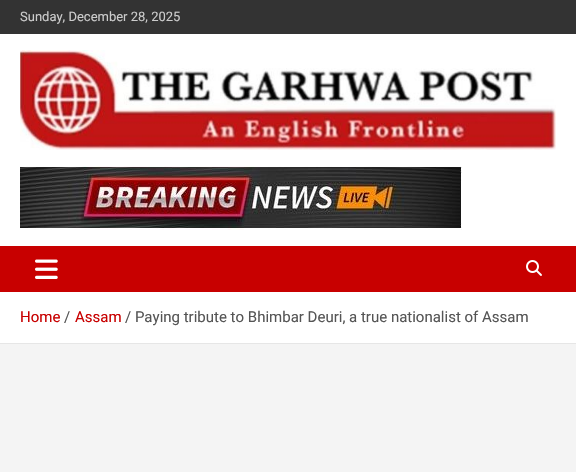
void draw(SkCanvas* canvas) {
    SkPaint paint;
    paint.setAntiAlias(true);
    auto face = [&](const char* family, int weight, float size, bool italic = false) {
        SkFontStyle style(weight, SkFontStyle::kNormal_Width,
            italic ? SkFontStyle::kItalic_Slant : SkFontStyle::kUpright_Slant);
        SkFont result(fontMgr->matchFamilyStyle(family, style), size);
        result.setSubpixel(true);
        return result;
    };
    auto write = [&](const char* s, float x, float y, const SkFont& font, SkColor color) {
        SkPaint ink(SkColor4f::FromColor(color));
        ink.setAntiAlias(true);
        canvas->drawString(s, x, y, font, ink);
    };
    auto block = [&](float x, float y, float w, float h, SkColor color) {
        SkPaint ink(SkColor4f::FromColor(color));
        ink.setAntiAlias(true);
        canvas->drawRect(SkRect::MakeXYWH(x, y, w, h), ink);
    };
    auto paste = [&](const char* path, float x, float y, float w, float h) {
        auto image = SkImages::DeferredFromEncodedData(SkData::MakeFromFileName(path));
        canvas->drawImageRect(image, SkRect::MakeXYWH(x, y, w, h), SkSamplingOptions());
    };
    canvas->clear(SkColorSetRGB(244, 244, 244));
    block(0, 0, 576, 34, SkColorSetRGB(51, 51, 51));
    auto kFont1 = face("Roboto", 400, 13);
    write("Sunday, December 28, 2025", 20, 21, kFont1, SkColorSetRGB(204, 204, 204));
    block(0, 34, 576, 212, SK_ColorWHITE);
    paste("pic1.png", 20, 50, 536, 100);
    paste("pic2.png", 20, 166, 442, 64);
    block(0, 246, 576, 46, SkColorSetRGB(200, 0, 0));
    paste("pic3.png", 35, 259, 23, 20);
    paste("pic4.png", 526, 260, 16, 16);
    block(0, 292, 576, 51, SK_ColorWHITE);
    block(0, 343, 576, 1, SkColorSetRGB(230, 230, 230));
    auto kFont2 = face("Roboto", 400, 15);
    write("Home", 20, 322, kFont2, SkColorSetRGB(200, 0, 0));
    write("/", 64, 322, kFont2, SkColorSetRGB(85, 85, 85));
    write("Assam", 75, 322, kFont2, SkColorSetRGB(200, 0, 0));
    write("/ Paying tribute to Bhimbar Deuri, a true nationalist of Assam", 125, 322, kFont2, SkColorSetRGB(85, 85, 85));
}
